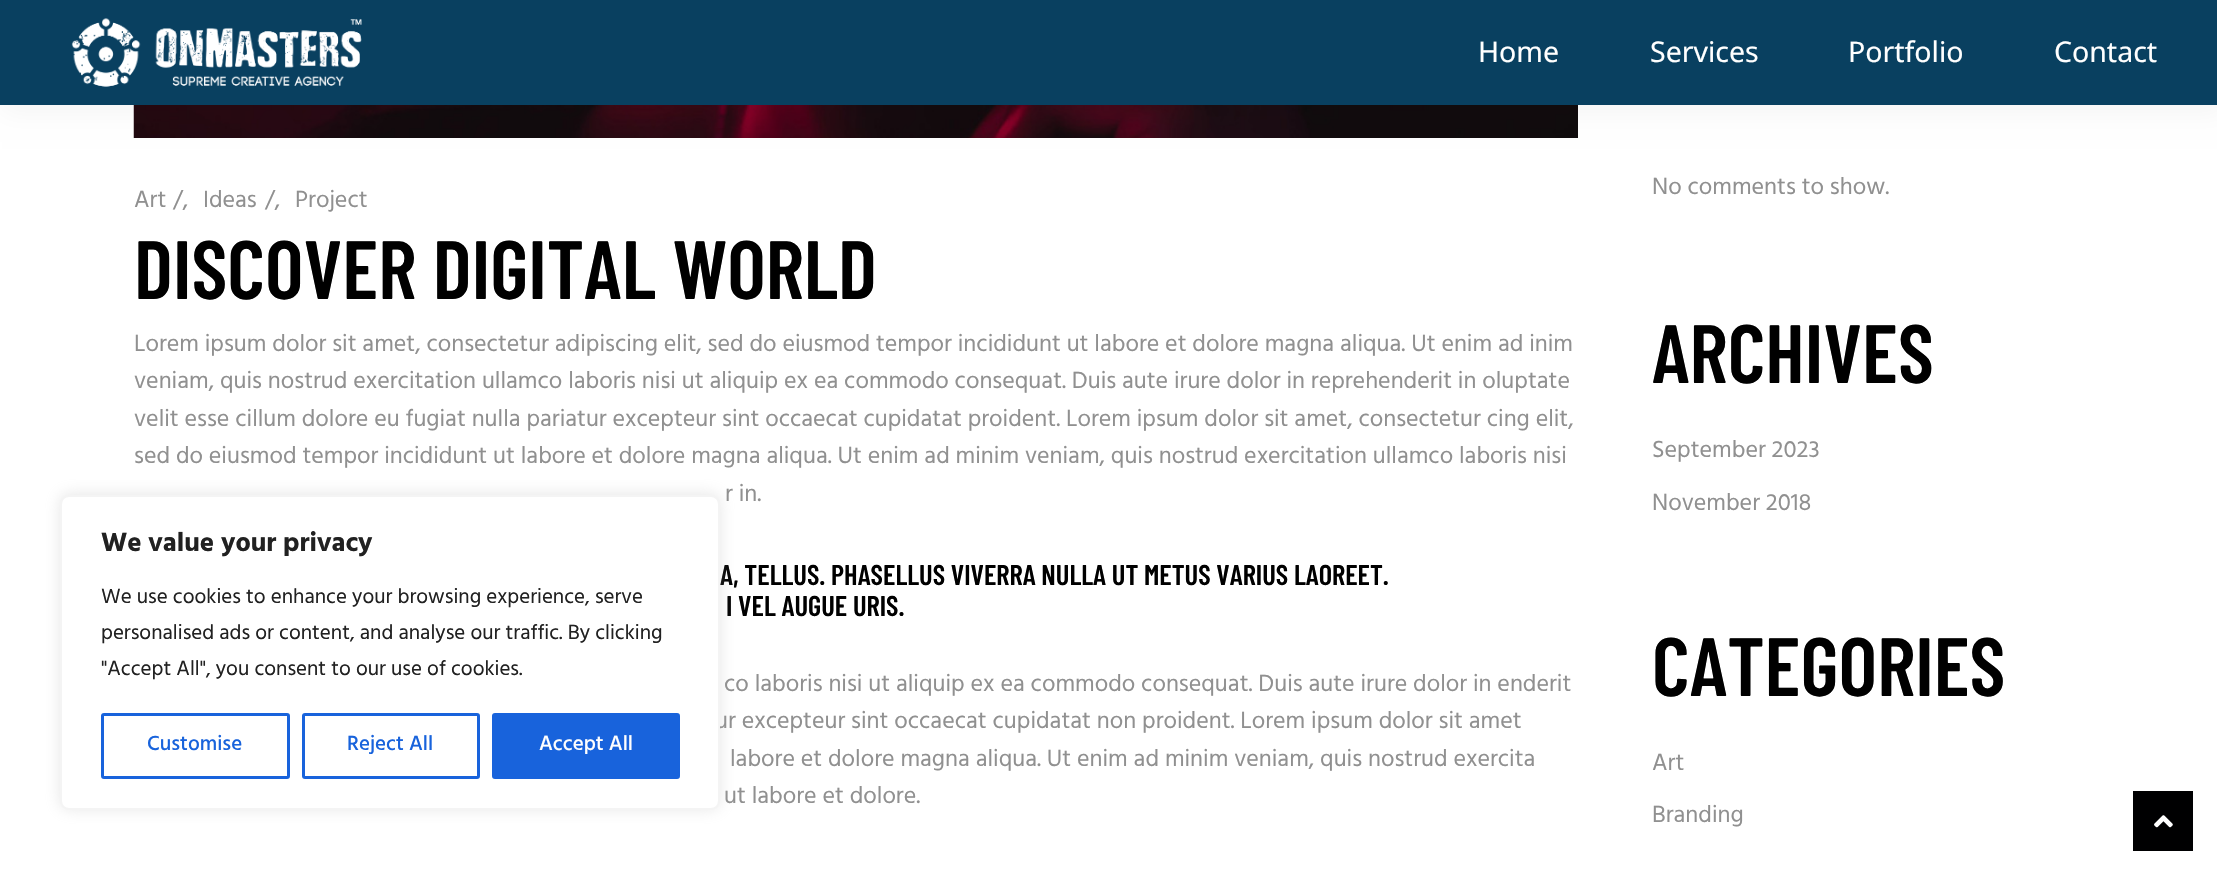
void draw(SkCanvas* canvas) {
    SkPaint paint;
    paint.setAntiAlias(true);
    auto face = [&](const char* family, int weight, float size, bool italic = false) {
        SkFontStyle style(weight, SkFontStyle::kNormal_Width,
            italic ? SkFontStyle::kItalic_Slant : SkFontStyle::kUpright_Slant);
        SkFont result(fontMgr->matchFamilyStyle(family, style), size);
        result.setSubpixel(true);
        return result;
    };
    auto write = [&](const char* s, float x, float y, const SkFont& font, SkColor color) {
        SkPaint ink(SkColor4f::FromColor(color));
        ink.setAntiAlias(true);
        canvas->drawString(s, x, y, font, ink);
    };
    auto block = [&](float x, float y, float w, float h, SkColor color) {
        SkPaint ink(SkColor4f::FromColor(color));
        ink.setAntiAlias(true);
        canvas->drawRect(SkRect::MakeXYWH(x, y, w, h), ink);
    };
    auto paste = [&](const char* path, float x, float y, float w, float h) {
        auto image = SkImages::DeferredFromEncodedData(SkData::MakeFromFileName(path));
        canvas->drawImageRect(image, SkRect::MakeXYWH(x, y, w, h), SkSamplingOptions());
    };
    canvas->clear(SK_ColorWHITE);
    paste("pic2.png", 133, 105, 1445, 33);
    paint.setColor(SkColorSetARGB(10, 0, 0, 0));
    paint.setMaskFilter(SkMaskFilter::MakeBlur(kNormal_SkBlurStyle, 12));
    canvas->drawRect(SkRect::MakeXYWH(2, 2, 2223, 111), paint);
    paint.setMaskFilter(nullptr);
    block(0, 0, 2217, 105, SkColorSetRGB(9, 64, 96));
    paste("pic1.png", 71, 18, 291, 69);
    auto kFont1 = face("Noto Sans", 400, 28.5f);
    write("Home", 1478, 62, kFont1, SK_ColorWHITE);
    write("Services", 1650, 62, kFont1, SK_ColorWHITE);
    write("Portfolio", 1848, 62, kFont1, SK_ColorWHITE);
    write("Contact", 2054, 62, kFont1, SK_ColorWHITE);
    auto kFont2 = face("Hind", 400, 24);
    write("Art", 134, 207, kFont2, SkColorSetRGB(144, 144, 144));
    write("/,", 173, 207, kFont2, SkColorSetRGB(144, 144, 144));
    write("Ideas", 203, 207, kFont2, SkColorSetRGB(144, 144, 144));
    write("/,", 265, 207, kFont2, SkColorSetRGB(144, 144, 144));
    write("Project", 295, 207, kFont2, SkColorSetRGB(144, 144, 144));
    auto kFont3 = face("Barlow Condensed", 600, 82.5f);
    write("DISCOVER DIGITAL WORLD", 134, 299, kFont3, SK_ColorBLACK);
    write("Lorem ipsum dolor sit amet, consectetur adipiscing elit, sed do eiusmod tempor incididunt ut labore et dolore magna aliqua. Ut enim ad inim", 134, 351, kFont2, SkColorSetRGB(144, 144, 144));
    write("veniam, quis nostrud exercitation ullamco laboris nisi ut aliquip ex ea commodo consequat. Duis aute irure dolor in reprehenderit in oluptate", 134, 388, kFont2, SkColorSetRGB(144, 144, 144));
    write("velit esse cillum dolore eu fugiat nulla pariatur excepteur sint occaecat cupidatat proident. Lorem ipsum dolor sit amet, consectetur cing elit,", 134, 426, kFont2, SkColorSetRGB(144, 144, 144));
    write("sed do eiusmod tempor incididunt ut labore et dolore magna aliqua. Ut enim ad minim veniam, quis nostrud exercitation ullamco laboris nisi", 134, 463, kFont2, SkColorSetRGB(144, 144, 144));
    write("r in.", 725, 501, kFont2, SkColorSetRGB(144, 144, 144));
    auto kFont4 = face("Barlow Condensed", 600, 28.5f);
    write("A, TELLUS. PHASELLUS VIVERRA NULLA UT METUS VARIUS LAOREET.", 720, 585, kFont4, SK_ColorBLACK);
    write("I VEL AUGUE URIS.", 726, 616, kFont4, SK_ColorBLACK);
    write("co laboris nisi ut aliquip ex ea commodo consequat. Duis aute irure dolor in enderit", 724, 691, kFont2, SkColorSetRGB(144, 144, 144));
    write("ur excepteur sint occaecat cupidatat non proident. Lorem ipsum dolor sit amet", 715, 728, kFont2, SkColorSetRGB(144, 144, 144));
    write("labore et dolore magna aliqua. Ut enim ad minim veniam, quis nostrud exercita", 730, 766, kFont2, SkColorSetRGB(144, 144, 144));
    write("ut labore et dolore.", 724, 803, kFont2, SkColorSetRGB(144, 144, 144));
    write("No comments to show.", 1652, 194, kFont2, SkColorSetRGB(144, 144, 144));
    write("ARCHIVES", 1652, 383, kFont3, SK_ColorBLACK);
    write("September 2023", 1652, 457, kFont2, SkColorSetRGB(144, 144, 144));
    write("November 2018", 1652, 510, kFont2, SkColorSetRGB(144, 144, 144));
    write("CATEGORIES", 1652, 696, kFont3, SK_ColorBLACK);
    write("Art", 1652, 770, kFont2, SkColorSetRGB(144, 144, 144));
    write("Branding", 1652, 822, kFont2, SkColorSetRGB(144, 144, 144));
    block(2133, 791, 60, 60, SkColorSetRGB(0, 0, 1));
    paste("pic3.png", 2154, 815, 19, 13);
    paint.setColor(SkColorSetARGB(77, 172, 171, 171));
    paint.setMaskFilter(SkMaskFilter::MakeBlur(kNormal_SkBlurStyle, 7.5f));
    canvas->drawRoundRect(SkRect::MakeXYWH(60, 494, 660, 315), 9, 9, paint);
    paint.setMaskFilter(nullptr);
    paint.setColor(SK_ColorWHITE);
    canvas->drawRoundRect(SkRect::MakeXYWH(61, 496, 658, 313), 8, 8, paint);
    paint.setStyle(SkPaint::kStroke_Style);
    paint.setStrokeWidth(2);
    paint.setColor(SkColorSetRGB(244, 244, 244));
    canvas->drawRoundRect(SkRect::MakeXYWH(61, 496, 658, 313), 8, 8, paint);
    auto kFont5 = face("Hind", 700, 27);
    write("We value your privacy", 101, 551, kFont5, SkColorSetRGB(33, 33, 33));
    auto kFont6 = face("Hind", 400, 21);
    write("We use cookies to enhance your browsing experience, serve", 101, 603, kFont6, SkColorSetRGB(33, 33, 33));
    write("personalised ads or content, and analyse our traffic. By clicking", 101, 639, kFont6, SkColorSetRGB(33, 33, 33));
    write("\"Accept All\", you consent to our use of cookies.", 101, 675, kFont6, SkColorSetRGB(33, 33, 33));
    paint.setStrokeWidth(3);
    paint.setColor(SkColorSetRGB(24, 99, 220));
    canvas->drawRoundRect(SkRect::MakeXYWH(102.5f, 714.5f, 186, 63), 1.5f, 1.5f, paint);
    auto kFont7 = face("Hind", 500, 21);
    write("Customise", 147, 750, kFont7, SkColorSetRGB(24, 99, 220));
    canvas->drawRoundRect(SkRect::MakeXYWH(303.5f, 714.5f, 175, 63), 1.5f, 1.5f, paint);
    write("Reject All", 347, 750, kFont7, SkColorSetRGB(24, 99, 220));
    paint.setStyle(SkPaint::kFill_Style);
    canvas->drawRoundRect(SkRect::MakeXYWH(493.5f, 714.5f, 185, 63), 1.5f, 1.5f, paint);
    paint.setStyle(SkPaint::kStroke_Style);
    canvas->drawRoundRect(SkRect::MakeXYWH(493.5f, 714.5f, 185, 63), 1.5f, 1.5f, paint);
    write("Accept All", 539, 750, kFont7, SK_ColorWHITE);
}
